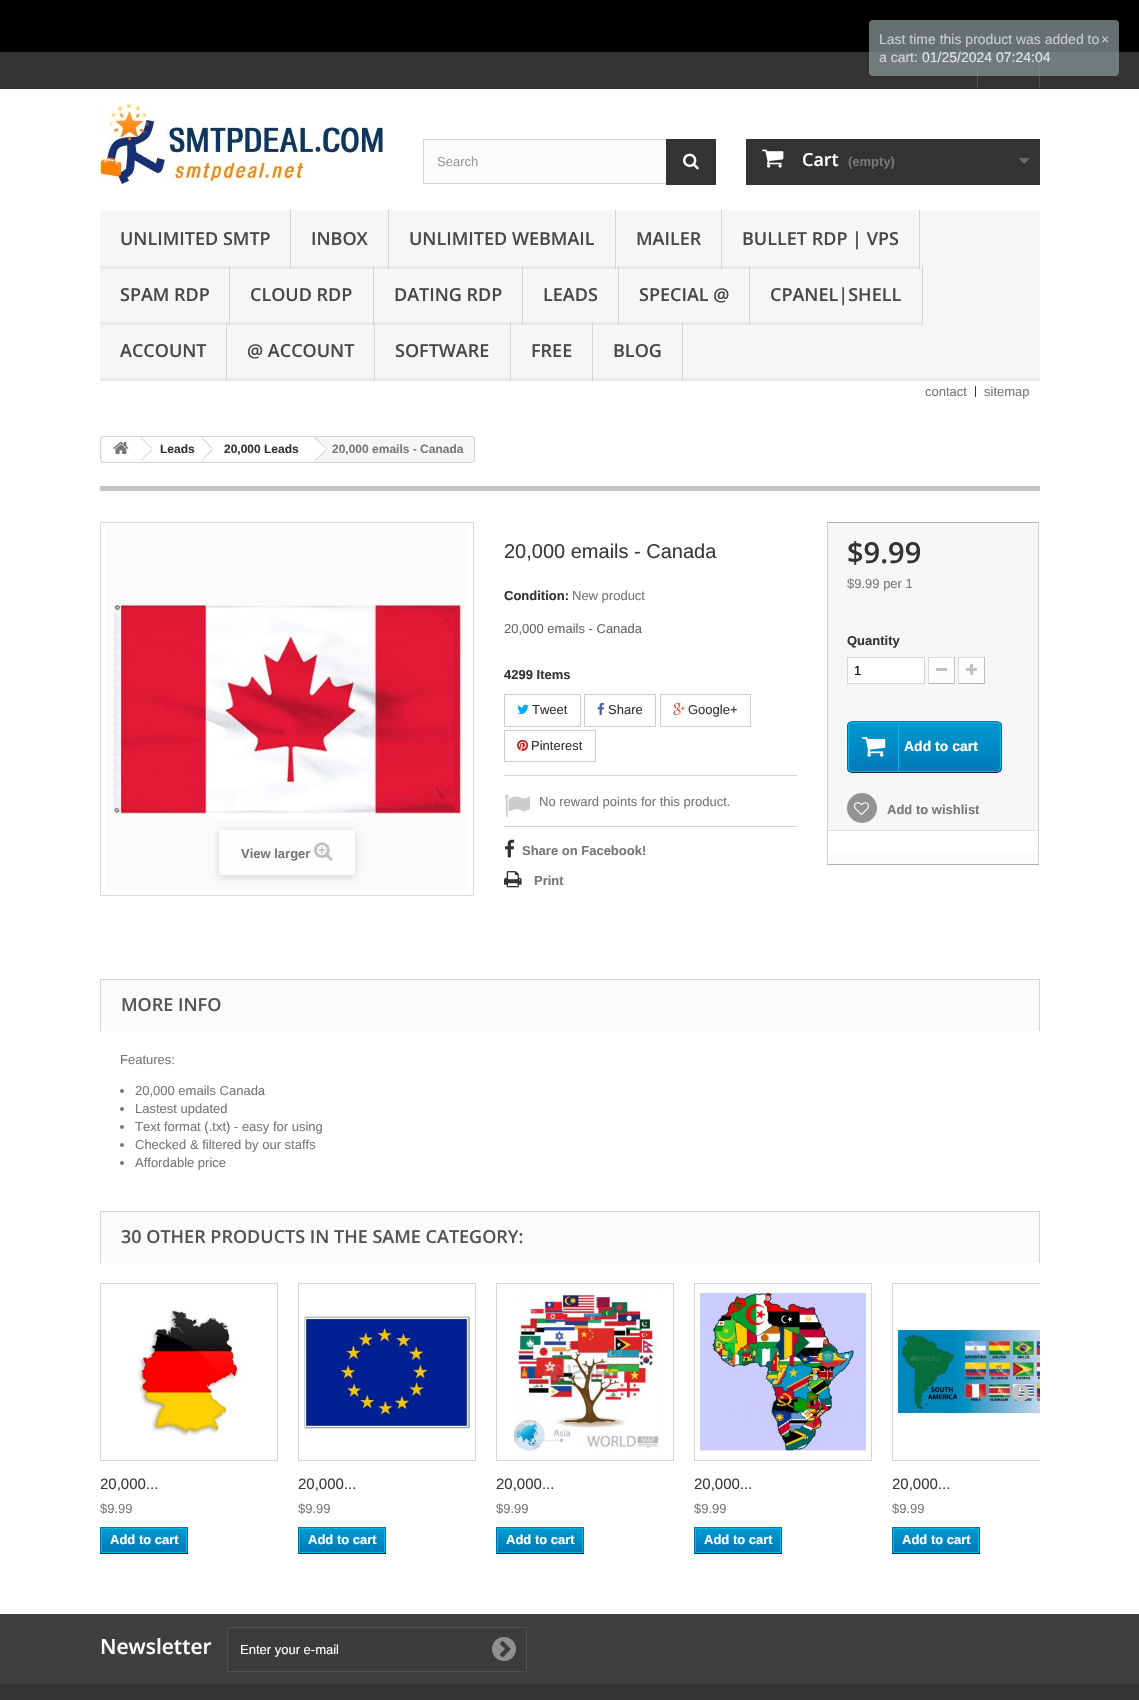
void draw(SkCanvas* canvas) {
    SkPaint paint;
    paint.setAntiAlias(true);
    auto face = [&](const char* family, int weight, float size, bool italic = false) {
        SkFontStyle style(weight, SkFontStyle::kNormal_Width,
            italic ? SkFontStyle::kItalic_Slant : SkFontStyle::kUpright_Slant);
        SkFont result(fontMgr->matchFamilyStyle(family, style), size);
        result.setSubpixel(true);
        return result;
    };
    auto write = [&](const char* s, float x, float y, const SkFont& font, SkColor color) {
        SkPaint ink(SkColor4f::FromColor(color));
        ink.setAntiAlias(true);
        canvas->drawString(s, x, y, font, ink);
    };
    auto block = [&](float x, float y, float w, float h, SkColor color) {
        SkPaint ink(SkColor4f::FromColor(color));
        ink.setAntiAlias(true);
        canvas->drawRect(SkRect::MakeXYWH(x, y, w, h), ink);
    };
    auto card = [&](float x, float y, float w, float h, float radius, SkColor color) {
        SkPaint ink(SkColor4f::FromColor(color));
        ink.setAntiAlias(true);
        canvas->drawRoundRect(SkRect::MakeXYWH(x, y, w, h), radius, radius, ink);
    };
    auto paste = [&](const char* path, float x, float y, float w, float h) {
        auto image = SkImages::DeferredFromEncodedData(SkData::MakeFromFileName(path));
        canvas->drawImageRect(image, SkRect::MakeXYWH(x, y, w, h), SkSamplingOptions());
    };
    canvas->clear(SK_ColorWHITE);
    block(0, 0, 1139, 52, SK_ColorBLACK);
    block(0, 52, 1139, 37, SkColorSetRGB(51, 51, 51));
    block(1039, 52, 1, 37, SkColorSetRGB(81, 81, 81));
    block(977, 52, 1, 37, SkColorSetRGB(81, 81, 81));
    card(869, 20, 250, 56, 4, SkColorSetARGB(204, 127, 140, 141));
    auto kFont1 = face("Liberation Sans", 400, 14);
    write("Last time this product was added to", 879, 44, kFont1, SkColorSetRGB(204, 204, 204));
    write("a cart:", 879, 62, kFont1, SkColorSetRGB(214, 214, 214));
    write("01/25/2024 07:24:04", 922, 62, kFont1, SkColorSetRGB(226, 228, 229));
    write("×", 1101, 44, kFont1, SkColorSetRGB(204, 204, 204));
    paste("pic1.png", 100, 104, 284, 81);
    block(424, 140, 242, 43, SkColorSetRGB(251, 251, 251));
    paint.setStyle(SkPaint::kStroke_Style);
    paint.setStrokeWidth(1);
    paint.setColor(SkColorSetRGB(214, 212, 212));
    canvas->drawRect(SkRect::MakeXYWH(423.5f, 139.5f, 292, 44), paint);
    auto kFont2 = face("Liberation Sans", 400, 13);
    write("Search", 437, 166, kFont2, SkColorSetRGB(153, 153, 153));
    block(666, 139, 50, 46, SkColorSetRGB(51, 51, 51));
    paste("pic2.png", 683, 153, 16, 17);
    block(746, 139, 294, 46, SkColorSetRGB(51, 51, 51));
    paste("pic3.png", 762, 149, 22, 19);
    auto kFont3 = face("Open Sans", 600, 18);
    write("Cart", 802, 166, kFont3, SK_ColorWHITE);
    auto kFont4 = face("Liberation Sans", 700, 13);
    write("(empty)", 848, 166, kFont4, SkColorSetRGB(119, 119, 119));
    paste("pic4.png", 1019, 158, 11, 6);
    block(100, 210, 940, 168, SkColorSetRGB(246, 246, 246));
    block(100, 378, 940, 3, SkColorSetRGB(233, 233, 233));
    block(290, 210, 1, 59, SkColorSetRGB(214, 212, 212));
    block(100, 266, 190, 3, SkColorSetRGB(233, 233, 233));
    write("UNLIMITED SMTP", 120, 245, kFont3, SkColorSetRGB(72, 72, 72));
    block(388, 210, 1, 59, SkColorSetRGB(214, 212, 212));
    block(291, 266, 97, 3, SkColorSetRGB(233, 233, 233));
    write("INBOX", 311, 245, kFont3, SkColorSetRGB(72, 72, 72));
    block(615, 210, 1, 59, SkColorSetRGB(214, 212, 212));
    block(389, 266, 226, 3, SkColorSetRGB(233, 233, 233));
    write("UNLIMITED WEBMAIL", 409, 245, kFont3, SkColorSetRGB(72, 72, 72));
    block(721, 210, 1, 59, SkColorSetRGB(214, 212, 212));
    block(616, 266, 105, 3, SkColorSetRGB(233, 233, 233));
    write("MAILER", 636, 245, kFont3, SkColorSetRGB(72, 72, 72));
    block(919, 210, 1, 59, SkColorSetRGB(214, 212, 212));
    block(722, 266, 197, 3, SkColorSetRGB(233, 233, 233));
    write("BULLET RDP | VPS", 742, 245, kFont3, SkColorSetRGB(72, 72, 72));
    block(229, 266, 1, 59, SkColorSetRGB(214, 212, 212));
    block(100, 322, 129, 3, SkColorSetRGB(233, 233, 233));
    write("SPAM RDP", 120, 301, kFont3, SkColorSetRGB(72, 72, 72));
    block(373, 266, 1, 59, SkColorSetRGB(214, 212, 212));
    block(230, 322, 143, 3, SkColorSetRGB(233, 233, 233));
    write("CLOUD RDP", 250, 301, kFont3, SkColorSetRGB(72, 72, 72));
    block(522, 266, 1, 59, SkColorSetRGB(214, 212, 212));
    block(374, 322, 148, 3, SkColorSetRGB(233, 233, 233));
    write("DATING RDP", 394, 301, kFont3, SkColorSetRGB(72, 72, 72));
    block(618, 266, 1, 59, SkColorSetRGB(214, 212, 212));
    block(523, 322, 95, 3, SkColorSetRGB(233, 233, 233));
    write("LEADS", 543, 301, kFont3, SkColorSetRGB(72, 72, 72));
    block(749, 266, 1, 59, SkColorSetRGB(214, 212, 212));
    block(619, 322, 130, 3, SkColorSetRGB(233, 233, 233));
    write("SPECIAL @", 639, 301, kFont3, SkColorSetRGB(72, 72, 72));
    block(922, 266, 1, 59, SkColorSetRGB(214, 212, 212));
    block(750, 322, 172, 3, SkColorSetRGB(233, 233, 233));
    write("CPANEL|SHELL", 770, 301, kFont3, SkColorSetRGB(72, 72, 72));
    block(226, 322, 1, 59, SkColorSetRGB(214, 212, 212));
    write("ACCOUNT", 120, 357, kFont3, SkColorSetRGB(72, 72, 72));
    block(374, 322, 1, 59, SkColorSetRGB(214, 212, 212));
    write("@ ACCOUNT", 247, 357, kFont3, SkColorSetRGB(72, 72, 72));
    block(510, 322, 1, 59, SkColorSetRGB(214, 212, 212));
    write("SOFTWARE", 395, 357, kFont3, SkColorSetRGB(72, 72, 72));
    block(592, 322, 1, 59, SkColorSetRGB(214, 212, 212));
    write("FREE", 531, 357, kFont3, SkColorSetRGB(72, 72, 72));
    block(682, 322, 1, 59, SkColorSetRGB(214, 212, 212));
    write("BLOG", 613, 357, kFont3, SkColorSetRGB(72, 72, 72));
    write("contact", 925, 396, kFont2, SkColorSetRGB(119, 119, 119));
    block(975, 386, 1, 11, SkColorSetRGB(51, 51, 51));
    write("sitemap", 984, 396, kFont2, SkColorSetRGB(119, 119, 119));
    paint.setStyle(SkPaint::kFill_Style);
    paint.setColor(SkColorSetRGB(246, 246, 246));
    canvas->drawRoundRect(SkRect::MakeXYWH(100.5f, 436.5f, 374, 26), 2.5f, 2.5f, paint);
    paint.setStyle(SkPaint::kStroke_Style);
    paint.setColor(SkColorSetRGB(214, 212, 212));
    canvas->drawRoundRect(SkRect::MakeXYWH(100.5f, 436.5f, 374, 26), 2.5f, 2.5f, paint);
    paint.setStyle(SkPaint::kFill_Style);
    paint.setColor(SK_ColorWHITE);
    canvas->drawPath(SkPathBuilder().moveTo(105, 437).lineTo(140, 437).lineTo(140, 462).lineTo(105, 462).cubicTo(103.5f, 462, 102, 460.5f, 102, 459).lineTo(102, 440).cubicTo(102, 438.5f, 103.5f, 437, 105, 437).close().detach(), paint);
    paste("pic5.png", 113, 441, 16, 13);
    block(140, 437, 62, 24, SK_ColorWHITE);
    paint.setColor(SkColorSetRGB(214, 212, 212));
    canvas->drawPath(SkPathBuilder().moveTo(141, 437).lineTo(152.5f, 448.5f).lineTo(152, 449).lineTo(140.5f, 438).close().moveTo(152, 449).lineTo(152.5f, 450).lineTo(141, 461).lineTo(140.5f, 460.5f).close().detach(), paint);
    auto kFont5 = face("Liberation Sans", 700, 12);
    write("Leads", 160, 453, kFont5, SkColorSetRGB(51, 51, 51));
    paint.setColor(SK_ColorWHITE);
    canvas->drawPath(SkPathBuilder().moveTo(212.5f, 438).lineTo(222, 448).cubicTo(223, 448.5f, 223, 450, 222, 450.5f).lineTo(212.5f, 460.5f).cubicTo(211.5f, 461.5f, 210, 461.5f, 209.5f, 460.5f).lineTo(199.5f, 450.5f).cubicTo(199, 450, 199, 448.5f, 199.5f, 448).lineTo(209.5f, 438).cubicTo(210, 437, 211.5f, 437, 212.5f, 438).close().detach(), paint);
    block(202, 437, 112, 24, SK_ColorWHITE);
    paint.setColor(SkColorSetRGB(214, 212, 212));
    canvas->drawPath(SkPathBuilder().moveTo(201.5f, 437).lineTo(213, 448.5f).lineTo(212, 449).lineTo(201, 438).close().moveTo(212, 449).lineTo(213, 450).lineTo(201.5f, 461).lineTo(201, 460.5f).close().detach(), paint);
    write("20,000 Leads", 224, 453, kFont5, SkColorSetRGB(51, 51, 51));
    paint.setColor(SK_ColorWHITE);
    canvas->drawPath(SkPathBuilder().moveTo(316, 438).lineTo(326, 448).cubicTo(326.5f, 448.5f, 326.5f, 450, 326, 450.5f).lineTo(316, 460.5f).cubicTo(315, 461.5f, 314, 461.5f, 313, 460.5f).lineTo(303.5f, 450.5f).cubicTo(302.5f, 450, 302.5f, 448.5f, 303.5f, 448).lineTo(313, 438).cubicTo(314, 437, 315, 437, 316, 438).close().detach(), paint);
    paint.setColor(SkColorSetRGB(214, 212, 212));
    canvas->drawPath(SkPathBuilder().moveTo(315.5f, 437).lineTo(326.5f, 448.5f).lineTo(326, 449).lineTo(314.5f, 438).close().moveTo(326, 449).lineTo(326.5f, 450).lineTo(315.5f, 461).lineTo(314.5f, 460.5f).close().detach(), paint);
    write("20,000 emails - Canada", 332, 453, kFont5, SkColorSetRGB(119, 119, 119));
    block(100, 486, 940, 5, SkColorSetRGB(196, 196, 196));
    paint.setStyle(SkPaint::kStroke_Style);
    paint.setColor(SkColorSetRGB(219, 219, 219));
    canvas->drawRect(SkRect::MakeXYWH(100.5f, 522.5f, 373, 373), paint);
    block(106, 528, 362, 362, SkColorSetRGB(251, 251, 251));
    paste("pic6.png", 113, 604, 349, 213);
    paint.setStyle(SkPaint::kFill_Style);
    paint.setColor(SkColorSetARGB(41, 0, 0, 0));
    paint.setMaskFilter(SkMaskFilter::MakeBlur(kNormal_SkBlurStyle, 4));
    canvas->drawRect(SkRect::MakeXYWH(219, 832, 136, 45), paint);
    paint.setMaskFilter(nullptr);
    block(219, 830, 136, 45, SkColorSetRGB(253, 253, 253));
    write("View larger", 241, 858, kFont4, SkColorSetRGB(119, 119, 119));
    paste("pic7.png", 314, 842, 19, 19);
    auto kFont6 = face("Liberation Sans", 400, 20);
    write("20,000 emails - Canada", 504, 558, kFont6, SkColorSetRGB(58, 57, 57));
    write("Condition:", 504, 600, kFont4, SkColorSetRGB(51, 51, 51));
    write("New product", 572, 600, kFont2, SkColorSetRGB(119, 119, 119));
    write("20,000 emails - Canada", 504, 633, kFont2, SkColorSetRGB(102, 102, 102));
    write("4299 Items", 504, 679, kFont4, SkColorSetRGB(51, 51, 51));
    paint.setStyle(SkPaint::kStroke_Style);
    paint.setColor(SkColorSetRGB(204, 204, 204));
    canvas->drawRect(SkRect::MakeXYWH(504.5f, 694.5f, 76, 32), paint);
    paste("pic8.png", 517, 704, 12, 10);
    write("Tweet", 532, 714, kFont2, SkColorSetRGB(51, 51, 51));
    canvas->drawRect(SkRect::MakeXYWH(584.5f, 694.5f, 71, 32), paint);
    paste("pic9.png", 597, 702, 7, 13);
    write("Share", 608, 714, kFont2, SkColorSetRGB(51, 51, 51));
    canvas->drawRect(SkRect::MakeXYWH(660.5f, 694.5f, 90, 32), paint);
    paste("pic10.png", 673, 702, 12, 13);
    write("Google+", 688, 714, kFont2, SkColorSetRGB(51, 51, 51));
    canvas->drawRect(SkRect::MakeXYWH(504.5f, 730.5f, 91, 31), paint);
    paste("pic11.png", 517, 739, 12, 12);
    write("Pinterest", 531, 750, kFont2, SkColorSetRGB(51, 51, 51));
    block(504, 775, 293, 1, SkColorSetRGB(214, 212, 212));
    block(504, 826, 293, 1, SkColorSetRGB(214, 212, 212));
    paste("pic12.png", 505, 794, 25, 23);
    write("No reward points for this product.", 539, 806, kFont2, SkColorSetRGB(119, 119, 119));
    paste("pic13.png", 505, 839, 10, 19);
    write("Share on Facebook!", 522, 855, kFont4, SkColorSetRGB(119, 119, 119));
    paste("pic14.png", 504, 871, 18, 17);
    write("Print", 534, 885, kFont4, SkColorSetRGB(119, 119, 119));
    block(828, 523, 210, 307, SkColorSetRGB(246, 246, 246));
    block(827, 522, 212, 1, SkColorSetRGB(176, 175, 175));
    block(1038, 522, 1, 343, SkColorSetRGB(210, 208, 208));
    block(827, 864, 212, 1, SkColorSetRGB(176, 175, 175));
    block(827, 522, 1, 343, SkColorSetRGB(210, 208, 208));
    auto kFont7 = face("Open Sans", 600, 29);
    write("$9.99", 847, 563, kFont7, SkColorSetRGB(51, 51, 51));
    write("$9.99 per 1", 847, 588, kFont2, SkColorSetRGB(119, 119, 119));
    write("Quantity", 847, 645, kFont4, SkColorSetRGB(51, 51, 51));
    paint.setStyle(SkPaint::kFill_Style);
    paint.setColor(SK_ColorWHITE);
    canvas->drawRect(SkRect::MakeXYWH(847.5f, 657.5f, 77, 26), paint);
    paint.setStyle(SkPaint::kStroke_Style);
    paint.setColor(SkColorSetRGB(214, 212, 212));
    canvas->drawRect(SkRect::MakeXYWH(847.5f, 657.5f, 77, 26), paint);
    write("1", 854, 675, kFont2, SK_ColorBLACK);
    block(928, 657, 27, 1, SkColorSetRGB(222, 220, 220));
    block(954, 657, 1, 27, SkColorSetRGB(193, 191, 191));
    block(928, 683, 27, 1, SkColorSetRGB(181, 180, 180));
    block(928, 657, 1, 27, SkColorSetRGB(218, 216, 216));
    paint.setStyle(SkPaint::kFill_Style);
    {
        const SkColor colors[] = {SK_ColorWHITE, SkColorSetRGB(251, 251, 251)};
        const float stops[] = {0, 1};
        const SkPoint ends[] = {{942, 659}, {942, 682}};
        paint.setShader(SkGradientShader::MakeLinear(ends, colors, stops, 2, SkTileMode::kClamp));
        paint.setAlpha(255);
    }
    canvas->drawRect(SkRect::MakeXYWH(930, 659, 23, 23), paint);
    paint.setStyle(SkPaint::kStroke_Style);
    paint.setShader(nullptr);
    paint.setColor(SK_ColorWHITE);
    canvas->drawRect(SkRect::MakeXYWH(929.5f, 658.5f, 24, 24), paint);
    block(936, 668, 11, 3, SkColorSetRGB(192, 192, 192));
    block(958, 657, 27, 1, SkColorSetRGB(222, 220, 220));
    block(984, 657, 1, 27, SkColorSetRGB(193, 191, 191));
    block(958, 683, 27, 1, SkColorSetRGB(181, 180, 180));
    block(958, 657, 1, 27, SkColorSetRGB(218, 216, 216));
    paint.setStyle(SkPaint::kFill_Style);
    {
        const SkColor colors[] = {SK_ColorWHITE, SkColorSetRGB(251, 251, 251)};
        const float stops[] = {0, 1};
        const SkPoint ends[] = {{972, 659}, {972, 682}};
        paint.setShader(SkGradientShader::MakeLinear(ends, colors, stops, 2, SkTileMode::kClamp));
        paint.setAlpha(255);
    }
    canvas->drawRect(SkRect::MakeXYWH(960, 659, 23, 23), paint);
    paint.setStyle(SkPaint::kStroke_Style);
    paint.setShader(nullptr);
    paint.setColor(SK_ColorWHITE);
    canvas->drawRect(SkRect::MakeXYWH(959.5f, 658.5f, 24, 24), paint);
    paste("pic15.png", 966, 664, 11, 11);
    canvas->save();
    canvas->clipPath(SkPathBuilder().moveTo(852, 721).lineTo(997, 721).cubicTo(1000, 721, 1002, 723, 1002, 726).lineTo(1002, 768).cubicTo(1002, 771, 1000, 773, 997, 773).lineTo(852, 773).cubicTo(849, 773, 847, 771, 847, 768).lineTo(847, 726).cubicTo(847, 723, 849, 721, 852, 721).close().detach(), true);
    paint.setStyle(SkPaint::kFill_Style);
    {
        const SkColor colors[] = {SkColorSetRGB(0, 154, 208), SkColorSetRGB(0, 122, 183)};
        const float stops[] = {0, 1};
        const SkPoint ends[] = {{925, 722}, {925, 772}};
        paint.setShader(SkGradientShader::MakeLinear(ends, colors, stops, 2, SkTileMode::kClamp));
        paint.setAlpha(255);
    }
    canvas->drawRect(SkRect::MakeXYWH(847, 722, 155, 50), paint);
    canvas->restore();
    paint.setStyle(SkPaint::kStroke_Style);
    paint.setShader(nullptr);
    paint.setColor(SkColorSetRGB(0, 121, 182));
    canvas->drawPath(SkPathBuilder().moveTo(849, 723).cubicTo(849.5f, 722, 851, 721.5f, 852, 721.5f).lineTo(997, 721.5f).cubicTo(998, 721.5f, 999.5f, 722, 1000, 723).detach(), paint);
    paint.setColor(SkColorSetRGB(0, 111, 168));
    canvas->drawPath(SkPathBuilder().moveTo(1000, 723).cubicTo(1001, 723.5f, 1001.5f, 725, 1001.5f, 726).lineTo(1001.5f, 768).cubicTo(1001.5f, 769, 1001, 770.5f, 1000, 771).detach(), paint);
    paint.setColor(SkColorSetRGB(1, 39, 64));
    canvas->drawPath(SkPathBuilder().moveTo(1000, 771).cubicTo(999.5f, 772, 998, 772.5f, 997, 772.5f).lineTo(852, 772.5f).cubicTo(851, 772.5f, 849.5f, 772, 849, 771).detach(), paint);
    paint.setColor(SkColorSetRGB(0, 111, 168));
    canvas->drawPath(SkPathBuilder().moveTo(849, 771).cubicTo(848, 770.5f, 847.5f, 769, 847.5f, 768).lineTo(847.5f, 726).cubicTo(847.5f, 725, 848, 723.5f, 849, 723).detach(), paint);
    paint.setColor(SkColorSetRGB(6, 178, 230));
    canvas->drawRoundRect(SkRect::MakeXYWH(848.5f, 722.5f, 152, 49), 4.5f, 4.5f, paint);
    canvas->drawPath(SkPathBuilder().moveTo(853, 722.5f).lineTo(898.5f, 722.5f).lineTo(898.5f, 771.5f).lineTo(853, 771.5f).cubicTo(850.5f, 771.5f, 848.5f, 769.5f, 848.5f, 767).lineTo(848.5f, 727).cubicTo(848.5f, 724.5f, 850.5f, 722.5f, 853, 722.5f).close().detach(), paint);
    paste("pic16.png", 862, 737, 24, 20);
    auto kFont8 = face("Liberation Sans", 700, 14);
    write("Add to cart", 904, 751, kFont8, SK_ColorWHITE);
    paint.setStyle(SkPaint::kFill_Style);
    paint.setColor(SkColorSetRGB(146, 146, 146));
    canvas->drawCircle(862, 808, 15, paint);
    paste("pic17.png", 854, 802, 15, 13);
    write("Add to wishlist", 887, 814, kFont4, SkColorSetRGB(119, 119, 119));
    {
        const SkColor colors[] = {SK_ColorWHITE, SkColorSetRGB(251, 251, 251)};
        const float stops[] = {0, 1};
        const SkPoint ends[] = {{933, 831}, {933, 864}};
        paint.setShader(SkGradientShader::MakeLinear(ends, colors, stops, 2, SkTileMode::kClamp));
        paint.setAlpha(255);
    }
    canvas->drawRect(SkRect::MakeXYWH(828, 852, 210, 12), paint);
    block(828, 830, 210, 1, SkColorSetRGB(223, 222, 222));
    block(101, 980, 938, 51, SkColorSetRGB(251, 251, 251));
    block(100, 979, 940, 1, SkColorSetRGB(214, 212, 212));
    block(1039, 979, 1, 52, SkColorSetRGB(214, 212, 212));
    block(100, 979, 1, 52, SkColorSetRGB(214, 212, 212));
    write("MORE INFO", 121, 1011, kFont3, SkColorSetRGB(85, 84, 84));
    write("Features:", 120, 1064, kFont2, SkColorSetRGB(119, 119, 119));
    paint.setShader(nullptr);
    paint.setColor(SkColorSetRGB(119, 119, 119));
    canvas->drawCircle(122, 1091, 2, paint);
    write("20,000 emails Canada", 135, 1095, kFont2, SkColorSetRGB(119, 119, 119));
    canvas->drawCircle(122, 1109, 2, paint);
    write("Lastest updated", 135, 1113, kFont2, SkColorSetRGB(119, 119, 119));
    canvas->drawCircle(122, 1127, 2, paint);
    write("Text format (.txt) - easy for using", 135, 1131, kFont2, SkColorSetRGB(119, 119, 119));
    canvas->drawCircle(122, 1145, 2, paint);
    write("Checked & filtered by our staffs", 135, 1149, kFont2, SkColorSetRGB(119, 119, 119));
    canvas->drawCircle(122, 1163, 2, paint);
    write("Affordable price", 135, 1167, kFont2, SkColorSetRGB(119, 119, 119));
    block(101, 1212, 938, 51, SkColorSetRGB(251, 251, 251));
    block(100, 1211, 940, 1, SkColorSetRGB(214, 212, 212));
    block(1039, 1211, 1, 52, SkColorSetRGB(214, 212, 212));
    block(100, 1211, 1, 52, SkColorSetRGB(214, 212, 212));
    write("30 OTHER PRODUCTS IN THE SAME CATEGORY:", 121, 1243, kFont3, SkColorSetRGB(85, 84, 84));
    canvas->save();
    canvas->clipRect(SkRect::MakeXYWH(100, 1283, 940, 271));
    paint.setStyle(SkPaint::kStroke_Style);
    paint.setColor(SkColorSetRGB(214, 212, 212));
    canvas->drawRect(SkRect::MakeXYWH(892.5f, 1283.5f, 177, 177), paint);
    canvas->restore();
    paste("pic23.png", 898, 1328, 142, 88);
    paste("pic18.png", 1012, 1384, 18, 18);
    canvas->drawRect(SkRect::MakeXYWH(100.5f, 1283.5f, 177, 177), paint);
    paste("pic19.png", 137, 1310, 107, 128);
    auto kFont9 = face("Liberation Sans", 400, 15);
    write("20,000...", 100, 1489, kFont9, SkColorSetRGB(58, 57, 57));
    write("$9.99", 100, 1513, kFont2, SkColorSetRGB(119, 119, 119));
    block(100, 1527, 88, 1, SkColorSetRGB(0, 121, 182));
    block(187, 1527, 1, 27, SkColorSetRGB(0, 111, 168));
    block(100, 1553, 88, 1, SkColorSetRGB(1, 39, 64));
    block(100, 1527, 1, 27, SkColorSetRGB(0, 111, 168));
    paint.setStyle(SkPaint::kFill_Style);
    {
        const SkColor colors[] = {SkColorSetRGB(0, 154, 208), SkColorSetRGB(0, 122, 183)};
        const float stops[] = {0, 1};
        const SkPoint ends[] = {{144, 1529}, {144, 1552}};
        paint.setShader(SkGradientShader::MakeLinear(ends, colors, stops, 2, SkTileMode::kClamp));
        paint.setAlpha(255);
    }
    canvas->drawRect(SkRect::MakeXYWH(102, 1529, 84, 23), paint);
    paint.setStyle(SkPaint::kStroke_Style);
    paint.setShader(nullptr);
    paint.setColor(SkColorSetRGB(6, 178, 230));
    canvas->drawRect(SkRect::MakeXYWH(101.5f, 1528.5f, 85, 24), paint);
    write("Add to cart", 110, 1544, kFont4, SK_ColorWHITE);
    paint.setColor(SkColorSetRGB(214, 212, 212));
    canvas->drawRect(SkRect::MakeXYWH(298.5f, 1283.5f, 177, 177), paint);
    paste("pic20.png", 304, 1310, 166, 119);
    write("20,000...", 298, 1489, kFont9, SkColorSetRGB(58, 57, 57));
    write("$9.99", 298, 1513, kFont2, SkColorSetRGB(119, 119, 119));
    block(298, 1527, 88, 1, SkColorSetRGB(0, 121, 182));
    block(385, 1527, 1, 27, SkColorSetRGB(0, 111, 168));
    block(298, 1553, 88, 1, SkColorSetRGB(1, 39, 64));
    block(298, 1527, 1, 27, SkColorSetRGB(0, 111, 168));
    paint.setStyle(SkPaint::kFill_Style);
    {
        const SkColor colors[] = {SkColorSetRGB(0, 154, 208), SkColorSetRGB(0, 122, 183)};
        const float stops[] = {0, 1};
        const SkPoint ends[] = {{342, 1529}, {342, 1552}};
        paint.setShader(SkGradientShader::MakeLinear(ends, colors, stops, 2, SkTileMode::kClamp));
        paint.setAlpha(255);
    }
    canvas->drawRect(SkRect::MakeXYWH(300, 1529, 84, 23), paint);
    paint.setStyle(SkPaint::kStroke_Style);
    paint.setShader(nullptr);
    paint.setColor(SkColorSetRGB(6, 178, 230));
    canvas->drawRect(SkRect::MakeXYWH(299.5f, 1528.5f, 85, 24), paint);
    write("Add to cart", 308, 1544, kFont4, SK_ColorWHITE);
    paint.setColor(SkColorSetRGB(214, 212, 212));
    canvas->drawRect(SkRect::MakeXYWH(496.5f, 1283.5f, 177, 177), paint);
    paste("pic21.png", 512, 1289, 149, 165);
    write("20,000...", 496, 1489, kFont9, SkColorSetRGB(58, 57, 57));
    write("$9.99", 496, 1513, kFont2, SkColorSetRGB(119, 119, 119));
    block(496, 1527, 88, 1, SkColorSetRGB(0, 121, 182));
    block(583, 1527, 1, 27, SkColorSetRGB(0, 111, 168));
    block(496, 1553, 88, 1, SkColorSetRGB(1, 39, 64));
    block(496, 1527, 1, 27, SkColorSetRGB(0, 111, 168));
    paint.setStyle(SkPaint::kFill_Style);
    {
        const SkColor colors[] = {SkColorSetRGB(0, 154, 208), SkColorSetRGB(0, 122, 183)};
        const float stops[] = {0, 1};
        const SkPoint ends[] = {{540, 1529}, {540, 1552}};
        paint.setShader(SkGradientShader::MakeLinear(ends, colors, stops, 2, SkTileMode::kClamp));
        paint.setAlpha(255);
    }
    canvas->drawRect(SkRect::MakeXYWH(498, 1529, 84, 23), paint);
    paint.setStyle(SkPaint::kStroke_Style);
    paint.setShader(nullptr);
    paint.setColor(SkColorSetRGB(6, 178, 230));
    canvas->drawRect(SkRect::MakeXYWH(497.5f, 1528.5f, 85, 24), paint);
    write("Add to cart", 506, 1544, kFont4, SK_ColorWHITE);
    paint.setColor(SkColorSetRGB(214, 212, 212));
    canvas->drawRect(SkRect::MakeXYWH(694.5f, 1283.5f, 177, 177), paint);
    paste("pic22.png", 700, 1289, 166, 165);
    write("20,000...", 694, 1489, kFont9, SkColorSetRGB(58, 57, 57));
    write("$9.99", 694, 1513, kFont2, SkColorSetRGB(119, 119, 119));
    block(694, 1527, 88, 1, SkColorSetRGB(0, 121, 182));
    block(781, 1527, 1, 27, SkColorSetRGB(0, 111, 168));
    block(694, 1553, 88, 1, SkColorSetRGB(1, 39, 64));
    block(694, 1527, 1, 27, SkColorSetRGB(0, 111, 168));
    paint.setStyle(SkPaint::kFill_Style);
    {
        const SkColor colors[] = {SkColorSetRGB(0, 154, 208), SkColorSetRGB(0, 122, 183)};
        const float stops[] = {0, 1};
        const SkPoint ends[] = {{738, 1529}, {738, 1552}};
        paint.setShader(SkGradientShader::MakeLinear(ends, colors, stops, 2, SkTileMode::kClamp));
        paint.setAlpha(255);
    }
    canvas->drawRect(SkRect::MakeXYWH(696, 1529, 84, 23), paint);
    paint.setStyle(SkPaint::kStroke_Style);
    paint.setShader(nullptr);
    paint.setColor(SkColorSetRGB(6, 178, 230));
    canvas->drawRect(SkRect::MakeXYWH(695.5f, 1528.5f, 85, 24), paint);
    write("Add to cart", 704, 1544, kFont4, SK_ColorWHITE);
    write("20,000...", 892, 1489, kFont9, SkColorSetRGB(58, 57, 57));
    write("$9.99", 892, 1513, kFont2, SkColorSetRGB(119, 119, 119));
    block(892, 1527, 88, 1, SkColorSetRGB(0, 121, 182));
    block(979, 1527, 1, 27, SkColorSetRGB(0, 111, 168));
    block(892, 1553, 88, 1, SkColorSetRGB(1, 39, 64));
    block(892, 1527, 1, 27, SkColorSetRGB(0, 111, 168));
    paint.setStyle(SkPaint::kFill_Style);
    {
        const SkColor colors[] = {SkColorSetRGB(0, 154, 208), SkColorSetRGB(0, 122, 183)};
        const float stops[] = {0, 1};
        const SkPoint ends[] = {{936, 1529}, {936, 1552}};
        paint.setShader(SkGradientShader::MakeLinear(ends, colors, stops, 2, SkTileMode::kClamp));
        paint.setAlpha(255);
    }
    canvas->drawRect(SkRect::MakeXYWH(894, 1529, 84, 23), paint);
    paint.setStyle(SkPaint::kStroke_Style);
    paint.setShader(nullptr);
    paint.setColor(SkColorSetRGB(6, 178, 230));
    canvas->drawRect(SkRect::MakeXYWH(893.5f, 1528.5f, 85, 24), paint);
    write("Add to cart", 902, 1544, kFont4, SK_ColorWHITE);
    block(0, 1684, 1139, 16, SkColorSetRGB(51, 51, 51));
    block(0, 1614, 1139, 70, SkColorSetRGB(63, 63, 63));
    auto kFont10 = face("Open Sans", 600, 21);
    write("Newsletter", 100, 1654, kFont10, SK_ColorWHITE);
    paint.setStyle(SkPaint::kFill_Style);
    paint.setColor(SkColorSetRGB(60, 60, 60));
    canvas->drawRect(SkRect::MakeXYWH(227.5f, 1627.5f, 299, 44), paint);
    paint.setStyle(SkPaint::kStroke_Style);
    paint.setColor(SkColorSetRGB(81, 81, 81));
    canvas->drawRect(SkRect::MakeXYWH(227.5f, 1627.5f, 299, 44), paint);
    write("Enter your e-mail", 240, 1654, kFont2, SK_ColorWHITE);
    paste("pic24.png", 492, 1637, 24, 24);
}
